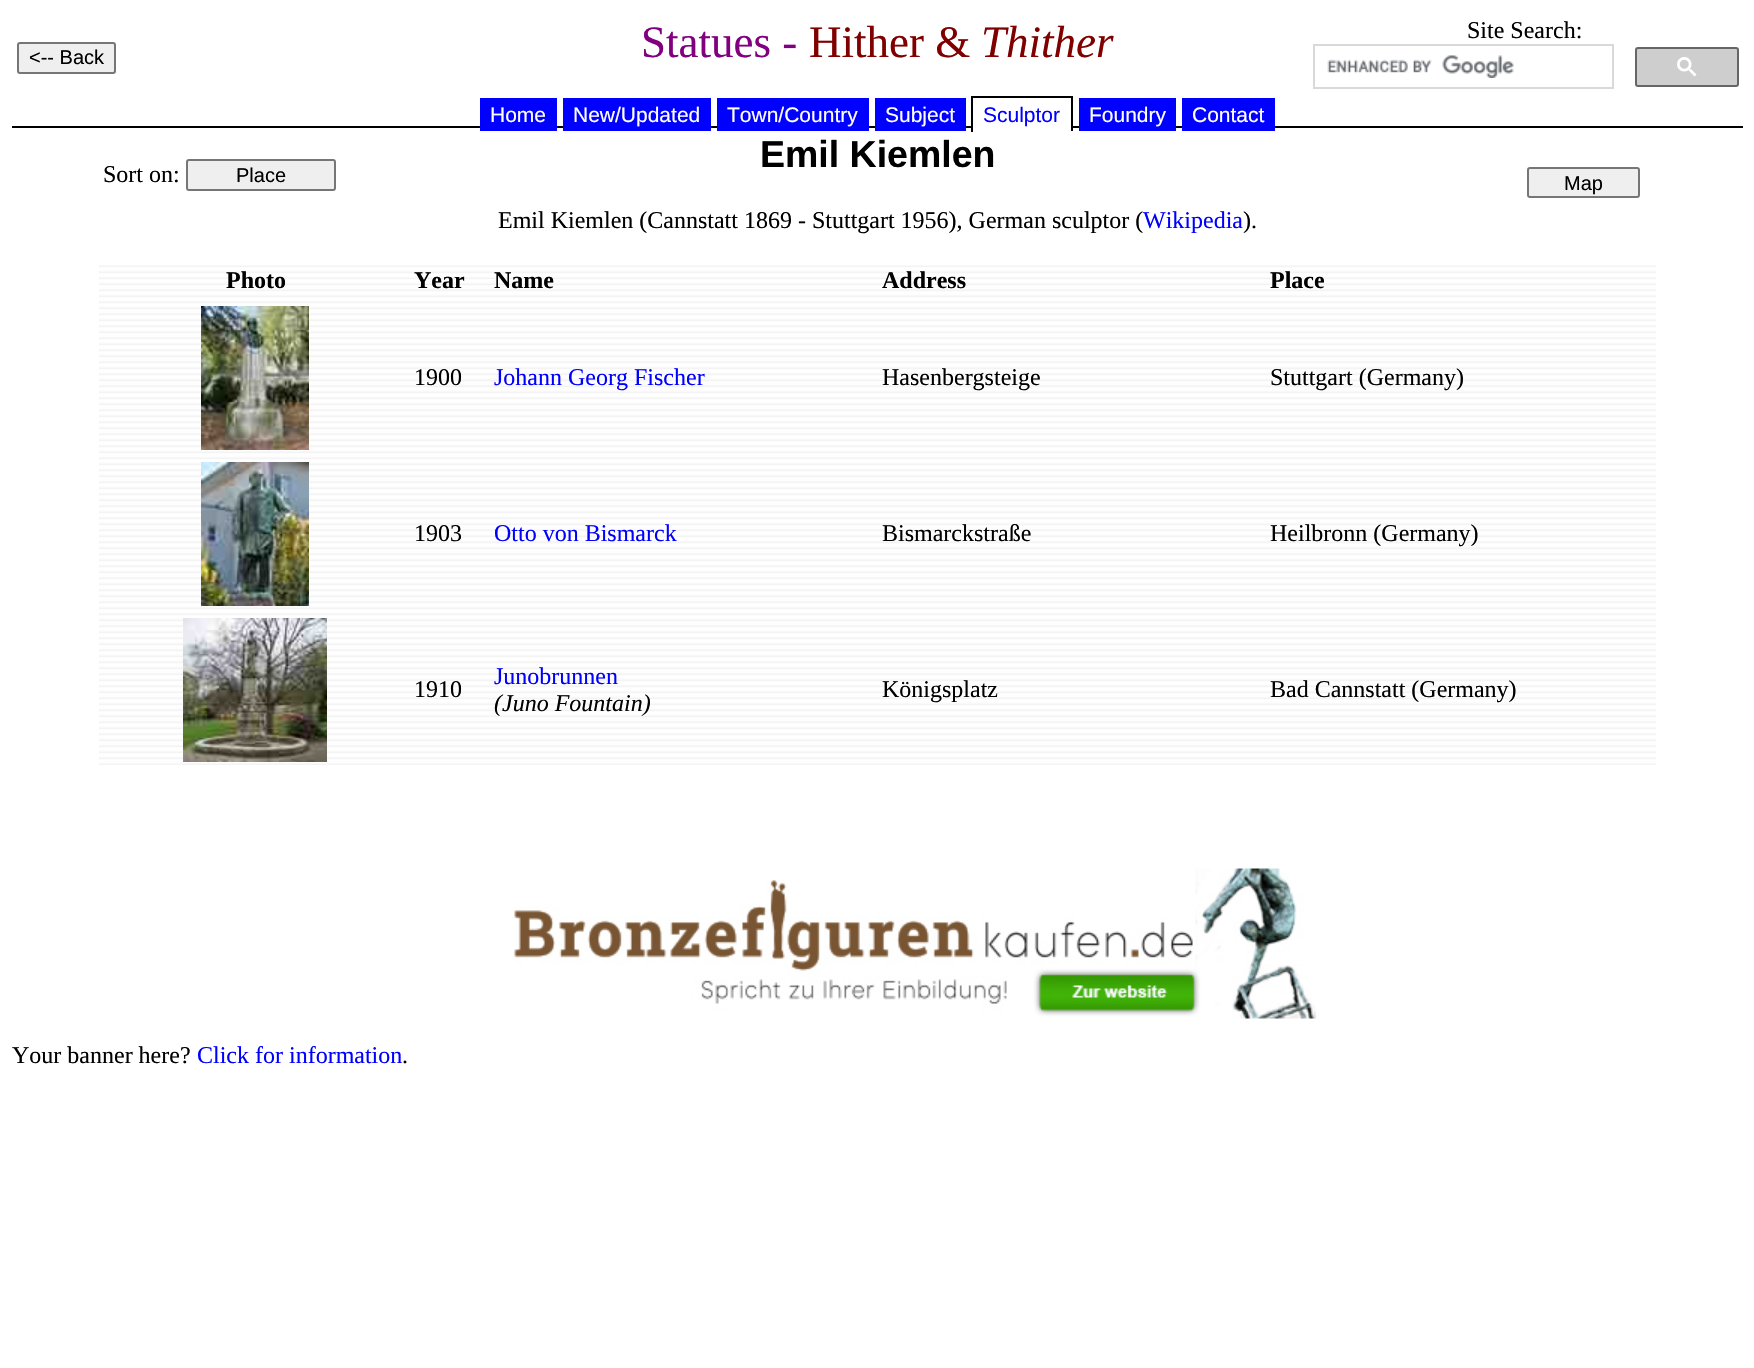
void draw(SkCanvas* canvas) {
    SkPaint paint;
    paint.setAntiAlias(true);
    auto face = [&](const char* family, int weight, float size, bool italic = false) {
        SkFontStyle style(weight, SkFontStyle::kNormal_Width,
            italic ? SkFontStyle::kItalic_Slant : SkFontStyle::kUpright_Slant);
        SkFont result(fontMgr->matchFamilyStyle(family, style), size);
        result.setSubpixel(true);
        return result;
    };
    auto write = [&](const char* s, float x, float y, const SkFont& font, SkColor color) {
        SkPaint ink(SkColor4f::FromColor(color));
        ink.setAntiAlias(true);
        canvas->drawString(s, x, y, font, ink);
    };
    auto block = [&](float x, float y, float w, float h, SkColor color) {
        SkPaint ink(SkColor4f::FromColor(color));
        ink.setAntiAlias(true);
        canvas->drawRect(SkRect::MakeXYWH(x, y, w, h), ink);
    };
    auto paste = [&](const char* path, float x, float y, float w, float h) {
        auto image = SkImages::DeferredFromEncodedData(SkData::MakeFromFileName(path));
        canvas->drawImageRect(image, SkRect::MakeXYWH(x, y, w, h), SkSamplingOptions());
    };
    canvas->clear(SK_ColorWHITE);
    paint.setColor(SkColorSetRGB(239, 239, 239));
    canvas->drawRoundRect(SkRect::MakeXYWH(18, 43, 97, 30), 2, 2, paint);
    paint.setStyle(SkPaint::kStroke_Style);
    paint.setStrokeWidth(2);
    paint.setColor(SkColorSetRGB(118, 118, 118));
    canvas->drawRoundRect(SkRect::MakeXYWH(18, 43, 97, 30), 2, 2, paint);
    auto kFont1 = face("Liberation Sans", 400, 20);
    write("<-- Back", 29, 64, kFont1, SK_ColorBLACK);
    auto kFont2 = face("Liberation Serif", 400, 45);
    write("Statues -", 641, 57, kFont2, SkColorSetRGB(128, 0, 128));
    write("Hither &", 809, 57, kFont2, SkColorSetRGB(128, 0, 0));
    auto kFont3 = face("Liberation Serif", 400, 45, true);
    write("Thither", 981, 57, kFont3, SkColorSetRGB(128, 0, 0));
    auto kFont4 = face("Liberation Serif", 400, 24);
    write("Site Search:", 1467, 38, kFont4, SK_ColorBLACK);
    paint.setColor(SkColorSetRGB(217, 217, 217));
    canvas->drawRect(SkRect::MakeXYWH(1314, 45, 299, 43), paint);
    paste("pic1.png", 1327, 55, 187, 23);
    paint.setStyle(SkPaint::kFill_Style);
    paint.setColor(SkColorSetRGB(206, 206, 206));
    canvas->drawRoundRect(SkRect::MakeXYWH(1636, 48, 102, 38), 2, 2, paint);
    paint.setStyle(SkPaint::kStroke_Style);
    paint.setColor(SkColorSetRGB(102, 102, 102));
    canvas->drawRoundRect(SkRect::MakeXYWH(1636, 48, 102, 38), 2, 2, paint);
    paste("pic2.png", 1677, 57, 20, 20);
    block(12, 126, 1731, 2, SK_ColorBLACK);
    block(480, 98, 77, 33, SkColorSetRGB(0, 0, 255));
    auto kFont5 = face("Liberation Sans", 400, 21);
    write("Home", 490, 122, kFont5, SK_ColorWHITE);
    block(563, 98, 148, 33, SkColorSetRGB(0, 0, 255));
    write("New/Updated", 573, 122, kFont5, SK_ColorWHITE);
    block(717, 98, 152, 33, SkColorSetRGB(0, 0, 255));
    write("Town/Country", 727, 122, kFont5, SK_ColorWHITE);
    block(875, 98, 91, 33, SkColorSetRGB(0, 0, 255));
    write("Subject", 885, 122, kFont5, SK_ColorWHITE);
    block(973, 126, 98, 2, SK_ColorWHITE);
    write("Sculptor", 983, 122, kFont5, SkColorSetRGB(0, 0, 255));
    block(971, 96, 102, 2, SK_ColorBLACK);
    block(1071, 96, 2, 36, SK_ColorBLACK);
    block(1071, 131, 2, 1, SK_ColorWHITE);
    block(971, 96, 2, 36, SK_ColorBLACK);
    block(1079, 98, 97, 33, SkColorSetRGB(0, 0, 255));
    write("Foundry", 1089, 122, kFont5, SK_ColorWHITE);
    block(1182, 98, 93, 33, SkColorSetRGB(0, 0, 255));
    write("Contact", 1192, 122, kFont5, SK_ColorWHITE);
    write("Sort on:", 103, 182, kFont4, SK_ColorBLACK);
    paint.setStyle(SkPaint::kFill_Style);
    paint.setColor(SkColorSetRGB(239, 239, 239));
    canvas->drawRoundRect(SkRect::MakeXYWH(187, 160, 148, 30), 2, 2, paint);
    paint.setStyle(SkPaint::kStroke_Style);
    paint.setColor(SkColorSetRGB(118, 118, 118));
    canvas->drawRoundRect(SkRect::MakeXYWH(187, 160, 148, 30), 2, 2, paint);
    write("Place", 236, 182, kFont1, SK_ColorBLACK);
    auto kFont6 = face("Liberation Sans", 700, 37.5f);
    write("Emil Kiemlen", 760, 167, kFont6, SK_ColorBLACK);
    write("Emil Kiemlen (Cannstatt 1869 - Stuttgart 1956), German sculptor (", 498, 228, kFont4, SK_ColorBLACK);
    write("Wikipedia", 1143, 228, kFont4, SkColorSetRGB(0, 0, 255));
    write(").", 1243, 228, kFont4, SK_ColorBLACK);
    paint.setStyle(SkPaint::kFill_Style);
    paint.setColor(SkColorSetRGB(239, 239, 239));
    canvas->drawRoundRect(SkRect::MakeXYWH(1528, 168, 111, 29), 2, 2, paint);
    paint.setStyle(SkPaint::kStroke_Style);
    paint.setColor(SkColorSetRGB(118, 118, 118));
    canvas->drawRoundRect(SkRect::MakeXYWH(1528, 168, 111, 29), 2, 2, paint);
    write("Map", 1564, 190, kFont1, SK_ColorBLACK);
    paste("pic3.png", 99, 265, 1557, 500);
    auto kFont7 = face("Liberation Serif", 700, 24);
    write("Photo", 226, 288, kFont7, SK_ColorBLACK);
    write("Year", 414, 288, kFont7, SK_ColorBLACK);
    write("Name", 494, 288, kFont7, SK_ColorBLACK);
    write("Address", 882, 288, kFont7, SK_ColorBLACK);
    write("Place", 1270, 288, kFont7, SK_ColorBLACK);
    paste("pic4.png", 201, 306, 108, 144);
    write("1900", 414, 385, kFont4, SK_ColorBLACK);
    write("Johann Georg Fischer", 494, 385, kFont4, SkColorSetRGB(0, 0, 255));
    write("Hasenbergsteige", 882, 385, kFont4, SK_ColorBLACK);
    write("Stuttgart (Germany)", 1270, 385, kFont4, SK_ColorBLACK);
    paste("pic5.png", 201, 462, 108, 144);
    write("1903", 414, 541, kFont4, SK_ColorBLACK);
    write("Otto von Bismarck", 494, 541, kFont4, SkColorSetRGB(0, 0, 255));
    write("Bismarckstraße", 882, 541, kFont4, SK_ColorBLACK);
    write("Heilbronn (Germany)", 1270, 541, kFont4, SK_ColorBLACK);
    paste("pic6.png", 183, 618, 144, 144);
    write("1910", 414, 697, kFont4, SK_ColorBLACK);
    write("Junobrunnen", 494, 684, kFont4, SkColorSetRGB(0, 0, 255));
    auto kFont8 = face("Liberation Serif", 400, 24, true);
    write("(Juno Fountain)", 494, 711, kFont8, SK_ColorBLACK);
    write("Königsplatz", 882, 697, kFont4, SK_ColorBLACK);
    write("Bad Cannstatt (Germany)", 1270, 697, kFont4, SK_ColorBLACK);
    paste("pic7.png", 514, 868, 803, 151);
    write("Your banner here?", 12, 1063, kFont4, SK_ColorBLACK);
    write("Click for information", 197, 1063, kFont4, SkColorSetRGB(0, 0, 255));
    write(".", 402, 1063, kFont4, SK_ColorBLACK);
}
